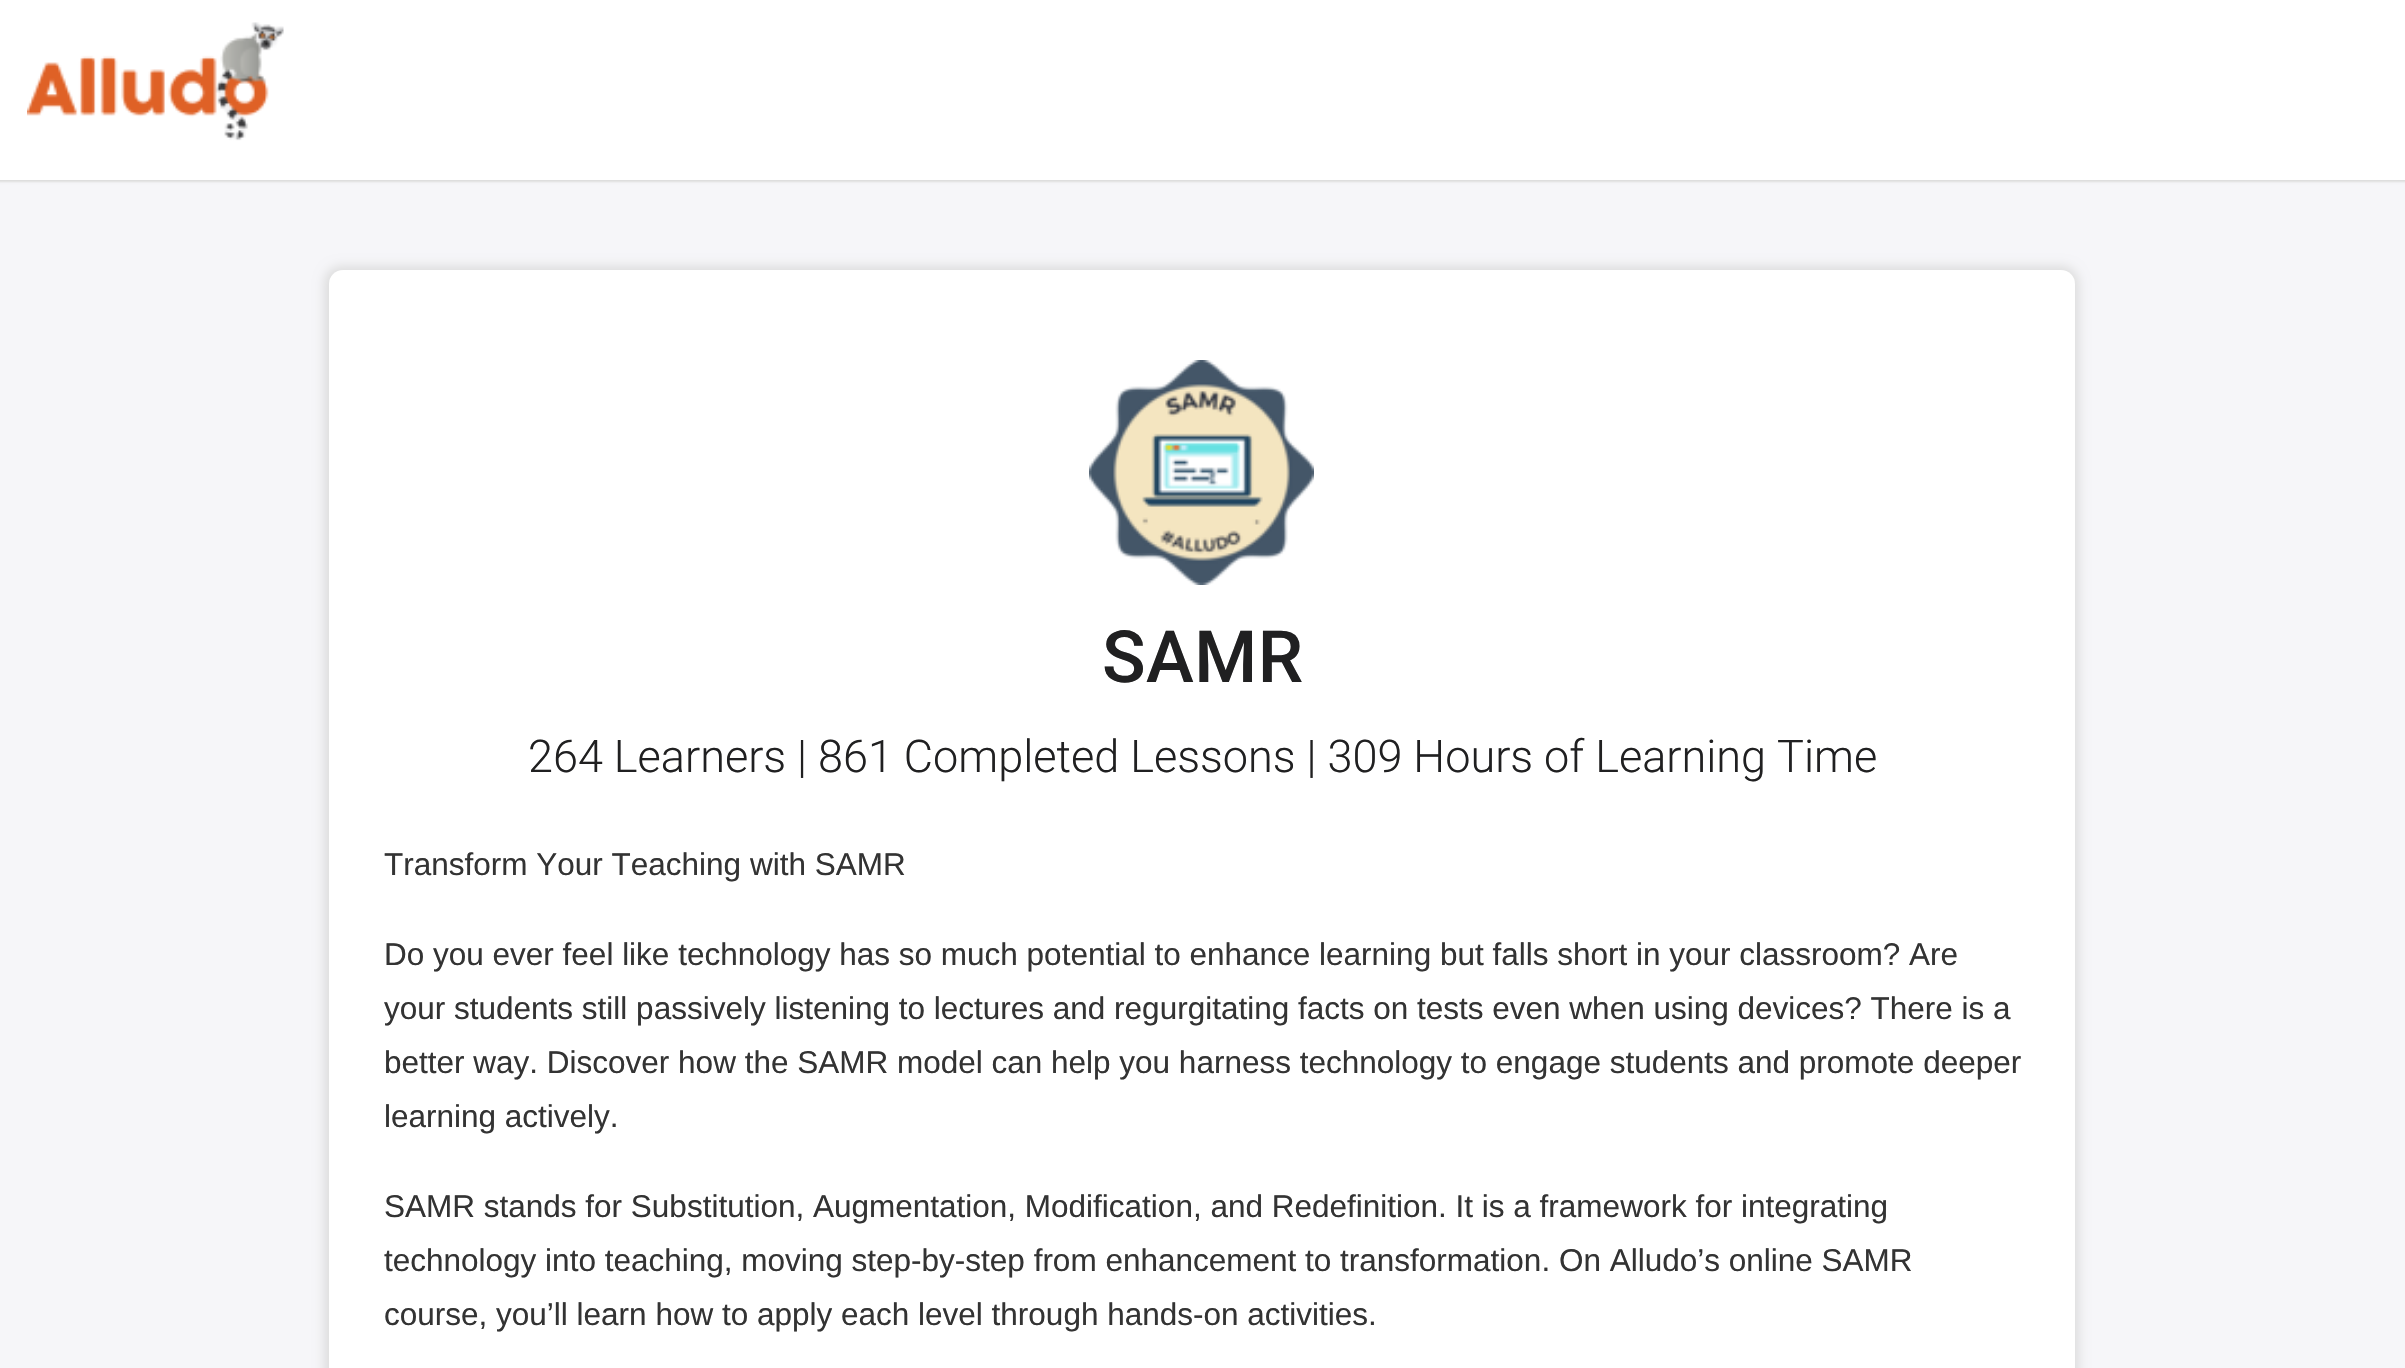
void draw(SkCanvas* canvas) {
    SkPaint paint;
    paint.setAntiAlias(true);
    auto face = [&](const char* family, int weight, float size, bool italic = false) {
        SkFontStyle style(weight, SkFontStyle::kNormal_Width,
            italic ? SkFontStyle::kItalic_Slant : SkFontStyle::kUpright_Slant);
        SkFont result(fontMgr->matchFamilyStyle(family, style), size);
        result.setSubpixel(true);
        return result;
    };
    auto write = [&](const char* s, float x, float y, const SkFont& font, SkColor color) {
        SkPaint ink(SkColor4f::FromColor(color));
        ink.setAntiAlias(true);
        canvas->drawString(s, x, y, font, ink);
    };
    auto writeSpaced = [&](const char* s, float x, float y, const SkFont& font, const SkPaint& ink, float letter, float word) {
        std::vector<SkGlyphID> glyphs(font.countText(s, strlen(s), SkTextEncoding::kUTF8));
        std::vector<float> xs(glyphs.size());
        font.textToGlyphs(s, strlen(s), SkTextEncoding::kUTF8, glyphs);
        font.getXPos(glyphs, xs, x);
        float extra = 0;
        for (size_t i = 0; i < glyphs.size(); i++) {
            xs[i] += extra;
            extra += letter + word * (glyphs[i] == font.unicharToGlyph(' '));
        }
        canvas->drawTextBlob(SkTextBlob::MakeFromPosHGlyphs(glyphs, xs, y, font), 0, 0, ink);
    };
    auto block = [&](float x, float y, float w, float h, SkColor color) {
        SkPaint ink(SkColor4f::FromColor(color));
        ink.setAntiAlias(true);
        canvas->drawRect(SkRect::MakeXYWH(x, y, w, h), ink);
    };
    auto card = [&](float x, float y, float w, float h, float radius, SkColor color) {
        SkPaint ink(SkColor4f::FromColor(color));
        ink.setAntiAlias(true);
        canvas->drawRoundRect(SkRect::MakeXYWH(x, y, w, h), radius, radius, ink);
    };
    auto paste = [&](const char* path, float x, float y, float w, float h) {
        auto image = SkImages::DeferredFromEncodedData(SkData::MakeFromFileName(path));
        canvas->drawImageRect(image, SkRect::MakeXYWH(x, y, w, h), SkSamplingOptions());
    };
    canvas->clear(SkColorSetRGB(246, 246, 249));
    paint.setColor(SkColorSetRGB(221, 221, 221));
    paint.setMaskFilter(SkMaskFilter::MakeBlur(kNormal_SkBlurStyle, 1));
    canvas->drawRect(SkRect::MakeXYWH(-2, -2, 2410, 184), paint);
    paint.setMaskFilter(nullptr);
    block(0, 0, 2405, 180, SK_ColorWHITE);
    paste("pic1.png", 27, 22, 257, 119);
    paint.setMaskFilter(SkMaskFilter::MakeBlur(kNormal_SkBlurStyle, 5.5f));
    canvas->drawRoundRect(SkRect::MakeXYWH(324, 266, 1755, 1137), 18, 18, paint);
    paint.setMaskFilter(nullptr);
    card(329, 270, 1746, 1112, 14, SK_ColorWHITE);
    paste("pic2.png", 1089, 360, 225, 225);
    auto kFont1 = face("Roboto", 500, 72);
    paint.setColor(SkColorSetRGB(32, 32, 33));
    writeSpaced("SAMR", 1102, 682, kFont1, paint, 0.5f, 0);
    auto kFont2 = face("Roboto", 300, 45);
    write("264 Learners | 861 Completed Lessons | 309 Hours of Learning Time", 528, 772, kFont2, SkColorSetRGB(32, 32, 33));
    auto kFont3 = face("Liberation Sans", 400, 31.5f);
    write("Transform Your Teaching with SAMR", 384, 875, kFont3, SkColorSetRGB(51, 51, 51));
    write("Do you ever feel like technology has so much potential to enhance learning but falls short in your classroom? Are", 384, 965, kFont3, SkColorSetRGB(51, 51, 51));
    write("your students still passively listening to lectures and regurgitating facts on tests even when using devices? There is a", 384, 1019, kFont3, SkColorSetRGB(51, 51, 51));
    write("better way. Discover how the SAMR model can help you harness technology to engage students and promote deeper", 384, 1073, kFont3, SkColorSetRGB(51, 51, 51));
    write("learning actively.", 384, 1127, kFont3, SkColorSetRGB(51, 51, 51));
    write("SAMR stands for Substitution, Augmentation, Modification, and Redefinition. It is a framework for integrating", 384, 1217, kFont3, SkColorSetRGB(51, 51, 51));
    write("technology into teaching, moving step-by-step from enhancement to transformation. On Alludo’s online SAMR", 384, 1271, kFont3, SkColorSetRGB(51, 51, 51));
    write("course, you’ll learn how to apply each level through hands-on activities.", 384, 1325, kFont3, SkColorSetRGB(51, 51, 51));
}
